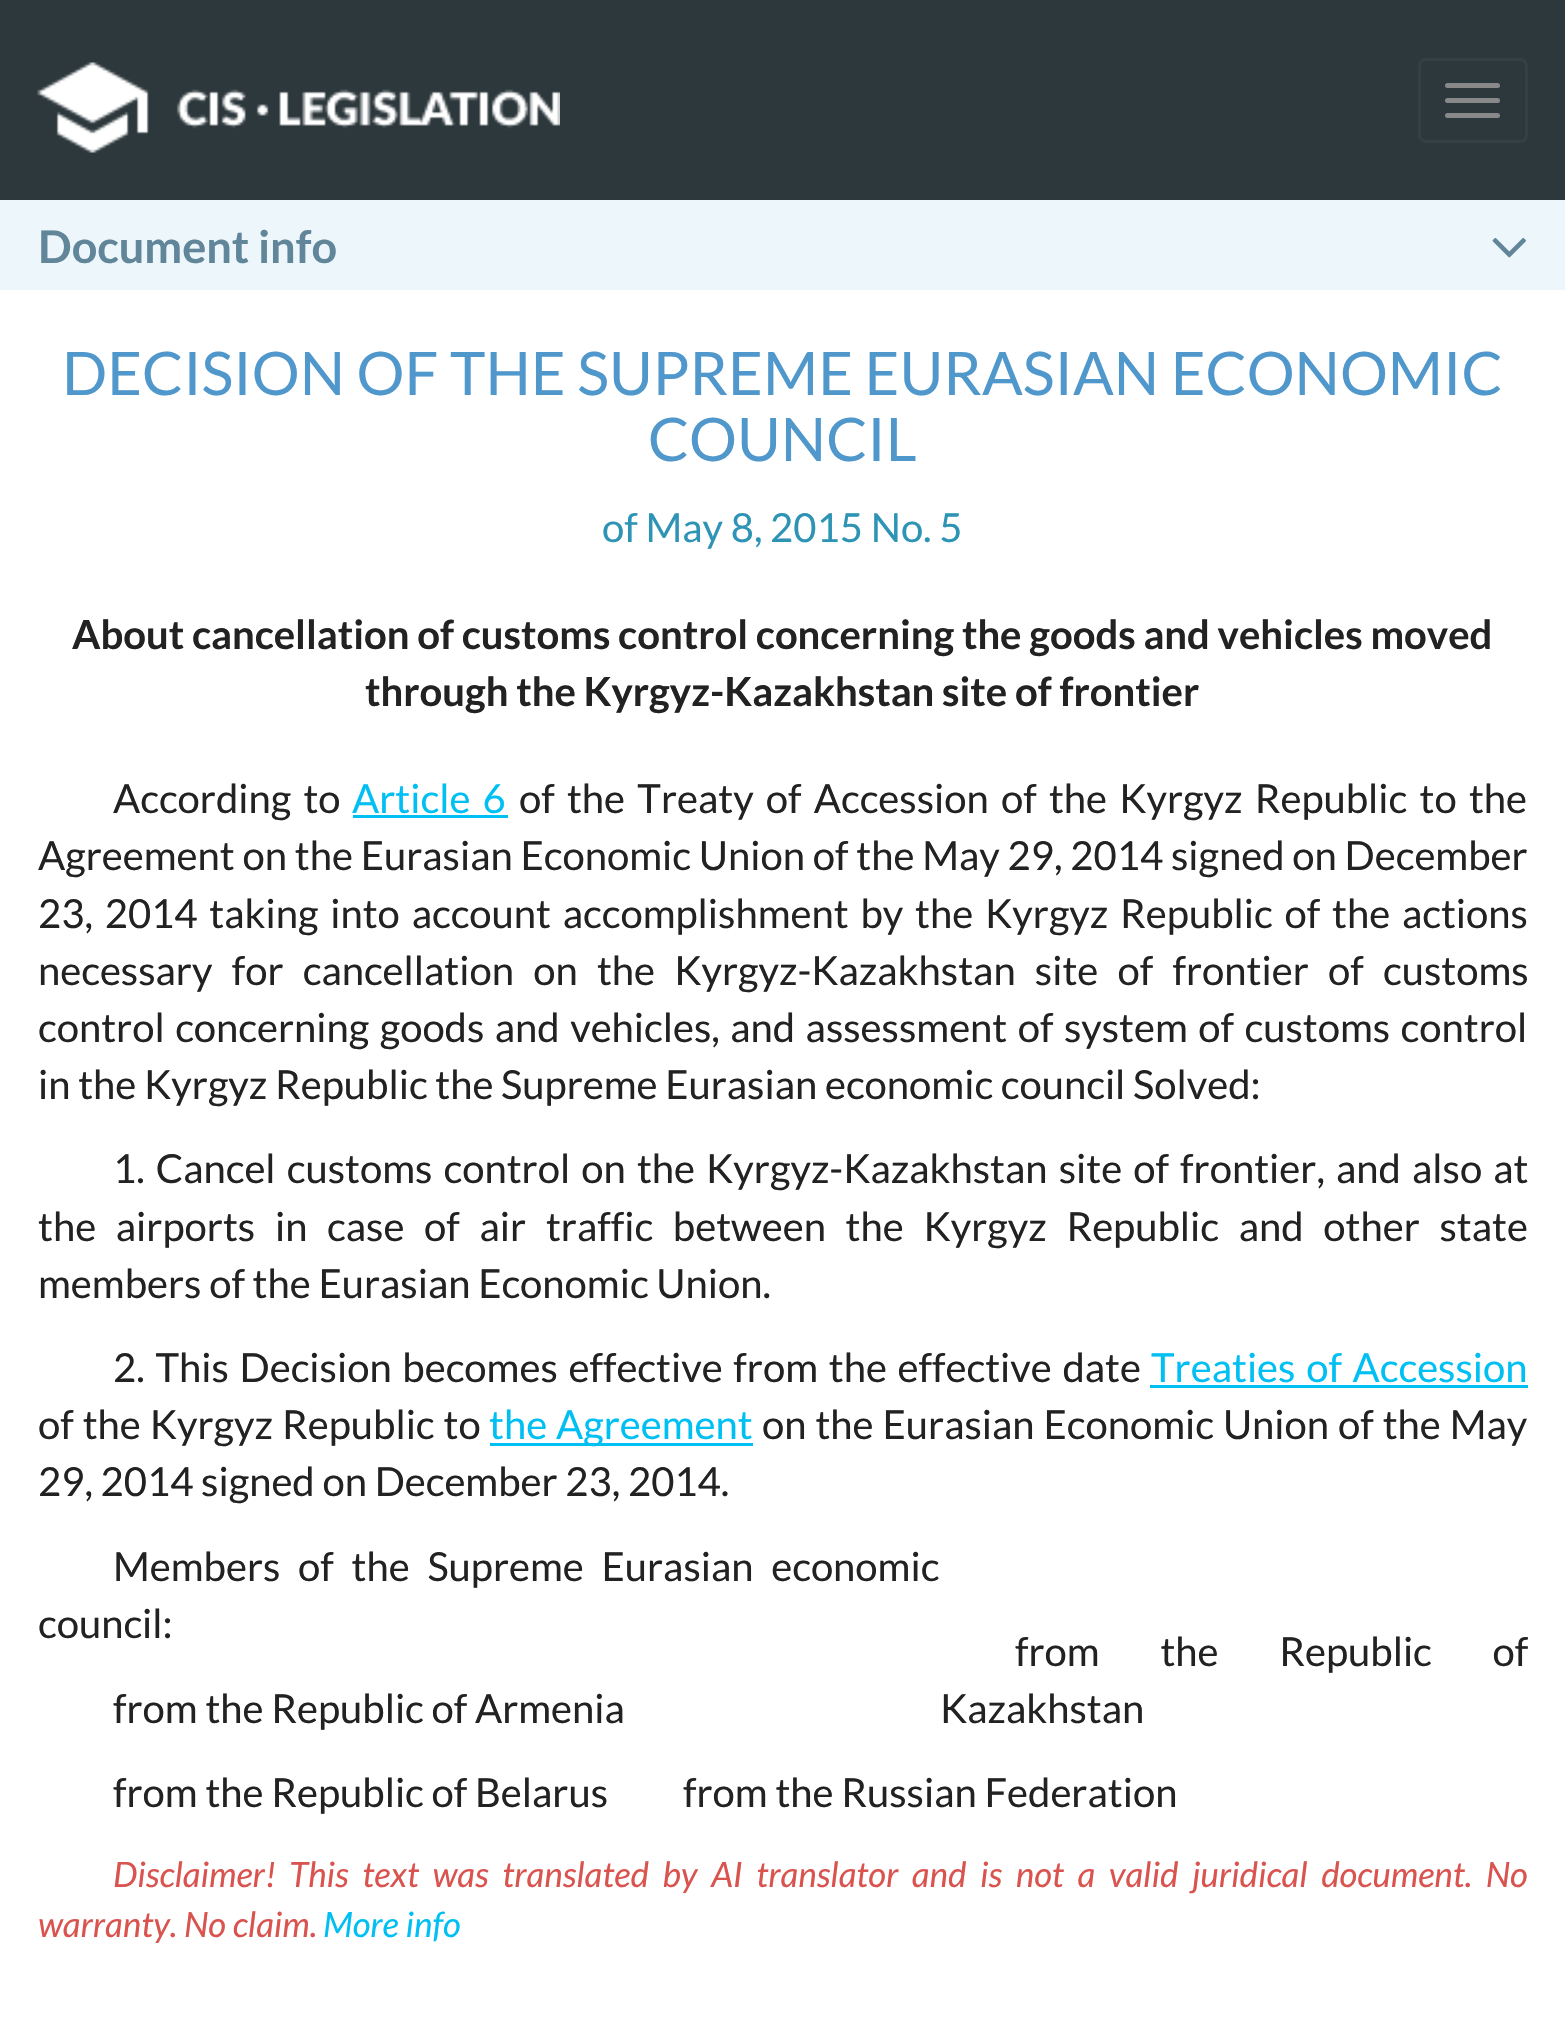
void draw(SkCanvas* canvas) {
    SkPaint paint;
    paint.setAntiAlias(true);
    auto face = [&](const char* family, int weight, float size, bool italic = false) {
        SkFontStyle style(weight, SkFontStyle::kNormal_Width,
            italic ? SkFontStyle::kItalic_Slant : SkFontStyle::kUpright_Slant);
        SkFont result(fontMgr->matchFamilyStyle(family, style), size);
        result.setSubpixel(true);
        return result;
    };
    auto write = [&](const char* s, float x, float y, const SkFont& font, SkColor color) {
        SkPaint ink(SkColor4f::FromColor(color));
        ink.setAntiAlias(true);
        canvas->drawString(s, x, y, font, ink);
    };
    auto writeSpaced = [&](const char* s, float x, float y, const SkFont& font, const SkPaint& ink, float letter, float word) {
        std::vector<SkGlyphID> glyphs(font.countText(s, strlen(s), SkTextEncoding::kUTF8));
        std::vector<float> xs(glyphs.size());
        font.textToGlyphs(s, strlen(s), SkTextEncoding::kUTF8, glyphs);
        font.getXPos(glyphs, xs, x);
        float extra = 0;
        for (size_t i = 0; i < glyphs.size(); i++) {
            xs[i] += extra;
            extra += letter + word * (glyphs[i] == font.unicharToGlyph(' '));
        }
        canvas->drawTextBlob(SkTextBlob::MakeFromPosHGlyphs(glyphs, xs, y, font), 0, 0, ink);
    };
    auto block = [&](float x, float y, float w, float h, SkColor color) {
        SkPaint ink(SkColor4f::FromColor(color));
        ink.setAntiAlias(true);
        canvas->drawRect(SkRect::MakeXYWH(x, y, w, h), ink);
    };
    auto card = [&](float x, float y, float w, float h, float radius, SkColor color) {
        SkPaint ink(SkColor4f::FromColor(color));
        ink.setAntiAlias(true);
        canvas->drawRoundRect(SkRect::MakeXYWH(x, y, w, h), radius, radius, ink);
    };
    auto paste = [&](const char* path, float x, float y, float w, float h) {
        auto image = SkImages::DeferredFromEncodedData(SkData::MakeFromFileName(path));
        canvas->drawImageRect(image, SkRect::MakeXYWH(x, y, w, h), SkSamplingOptions());
    };
    canvas->clear(SK_ColorWHITE);
    block(0, 0, 1565, 200, SkColorSetRGB(45, 56, 61));
    paste("pic1.png", 37, 62, 523, 91);
    paint.setStyle(SkPaint::kStroke_Style);
    paint.setStrokeWidth(3);
    paint.setColor(SkColorSetRGB(51, 64, 70));
    canvas->drawRoundRect(SkRect::MakeXYWH(1419.5f, 59.5f, 107, 82), 6.5f, 6.5f, paint);
    card(1445, 83, 55, 5, 2.5f, SkColorSetRGB(136, 136, 136));
    card(1445, 98, 55, 5, 2.5f, SkColorSetRGB(136, 136, 136));
    card(1445, 113, 55, 5, 2.5f, SkColorSetRGB(136, 136, 136));
    block(0, 200, 1565, 90, SkColorSetRGB(237, 246, 251));
    auto kFont1 = face("Lato", 700, 45);
    write("Document info", 38, 263, kFont1, SkColorSetRGB(97, 134, 154));
    paste("pic2.png", 1492, 238, 34, 20);
    auto kFont2 = face("Lato", 400, 60);
    write("DECISION OF THE SUPREME EURASIAN ECONOMIC", 62, 395, kFont2, SkColorSetRGB(80, 151, 204));
    write("COUNCIL", 648, 461, kFont2, SkColorSetRGB(80, 151, 204));
    auto kFont3 = face("Lato", 400, 40);
    write("of May 8, 2015 No. 5", 602, 542, kFont3, SkColorSetRGB(46, 148, 181));
    auto kFont4 = face("Lato", 700, 40);
    write("About cancellation of customs control concerning the goods and vehicles moved", 72, 649, kFont4, SkColorSetRGB(34, 34, 34));
    write("through the Kyrgyz-Kazakhstan site of frontier", 365, 706, kFont4, SkColorSetRGB(34, 34, 34));
    paint.setStyle(SkPaint::kFill_Style);
    paint.setColor(SkColorSetRGB(34, 34, 34));
    writeSpaced("According to", 113, 813, kFont3, paint, 0, 4.5f);
    paint.setColor(SkColorSetRGB(0, 191, 243));
    writeSpaced("Article 6", 352, 813, kFont3, paint, 0, 4.5f);
    block(353, 815, 155, 3, SkColorSetRGB(0, 191, 243));
    paint.setColor(SkColorSetRGB(34, 34, 34));
    writeSpaced("of the Treaty of Accession of the Kyrgyz Republic to the", 519, 813, kFont3, paint, 0, 4.5f);
    writeSpaced("Agreement on the Eurasian Economic Union of the May 29, 2014 signed on December", 38, 870, kFont3, paint, 0, 0.1f);
    writeSpaced("23, 2014 taking into account accomplishment by the Kyrgyz Republic of the actions", 38, 928, kFont3, paint, 0, 4.1f);
    writeSpaced("necessary for cancellation on the Kyrgyz-Kazakhstan site of frontier of customs", 38, 985, kFont3, paint, 0, 11.5f);
    writeSpaced("control concerning goods and vehicles, and assessment of system of customs control", 38, 1042, kFont3, paint, 0, 2.75f);
    write("in the Kyrgyz Republic the Supreme Eurasian economic council Solved:", 38, 1099, kFont3, SkColorSetRGB(34, 34, 34));
    writeSpaced("1. Cancel customs control on the Kyrgyz-Kazakhstan site of frontier, and also at", 113, 1183, kFont3, paint, 0, 3.4f);
    writeSpaced("the airports in case of air traffic between the Kyrgyz Republic and other state", 38, 1241, kFont3, paint, 0, 12);
    write("members of the Eurasian Economic Union.", 38, 1298, kFont3, SkColorSetRGB(34, 34, 34));
    writeSpaced("2. This Decision becomes effective from the effective date", 113, 1382, kFont3, paint, 0, 3);
    paint.setColor(SkColorSetRGB(0, 191, 243));
    writeSpaced("Treaties of Accession", 1151, 1382, kFont3, paint, 0, 3);
    block(1150, 1385, 378, 3, SkColorSetRGB(0, 191, 243));
    paint.setColor(SkColorSetRGB(34, 34, 34));
    writeSpaced("of the Kyrgyz Republic to", 38, 1439, kFont3, paint, 0, 1.25f);
    block(490, 1443, 263, 3, SkColorSetRGB(0, 191, 243));
    paint.setColor(SkColorSetRGB(0, 191, 243));
    writeSpaced("the Agreement", 489, 1439, kFont3, paint, 0, 1.25f);
    paint.setColor(SkColorSetRGB(34, 34, 34));
    writeSpaced("on the Eurasian Economic Union of the May", 762, 1439, kFont3, paint, 0, 1.25f);
    write("29, 2014 signed on December 23, 2014.", 38, 1496, kFont3, SkColorSetRGB(34, 34, 34));
    writeSpaced("Members of the Supreme Eurasian economic", 113, 1581, kFont3, paint, 0, 10);
    write("council:", 38, 1638, kFont3, SkColorSetRGB(34, 34, 34));
    write("from the Republic of Armenia", 113, 1723, kFont3, SkColorSetRGB(34, 34, 34));
    writeSpaced("from the Republic of", 1015, 1666, kFont3, paint, 0, 53);
    write("Kazakhstan", 940, 1723, kFont3, SkColorSetRGB(34, 34, 34));
    write("from the Republic of Belarus", 113, 1807, kFont3, SkColorSetRGB(34, 34, 34));
    write("from the Russian Federation", 683, 1807, kFont3, SkColorSetRGB(34, 34, 34));
    auto kFont5 = face("Lato", 400, 35, true);
    write("Disclaimer!", 113, 1887, kFont5, SkColorSetRGB(217, 83, 79));
    paint.setColor(SkColorSetRGB(217, 83, 79));
    writeSpaced("This text was translated by AI translator and is not a valid juridical document. No", 289, 1887, kFont5, paint, 0, 6.9f);
    write("warranty. No claim.", 38, 1937, kFont5, SkColorSetRGB(217, 83, 79));
    write("More info", 323, 1937, kFont5, SkColorSetRGB(0, 191, 243));
}
